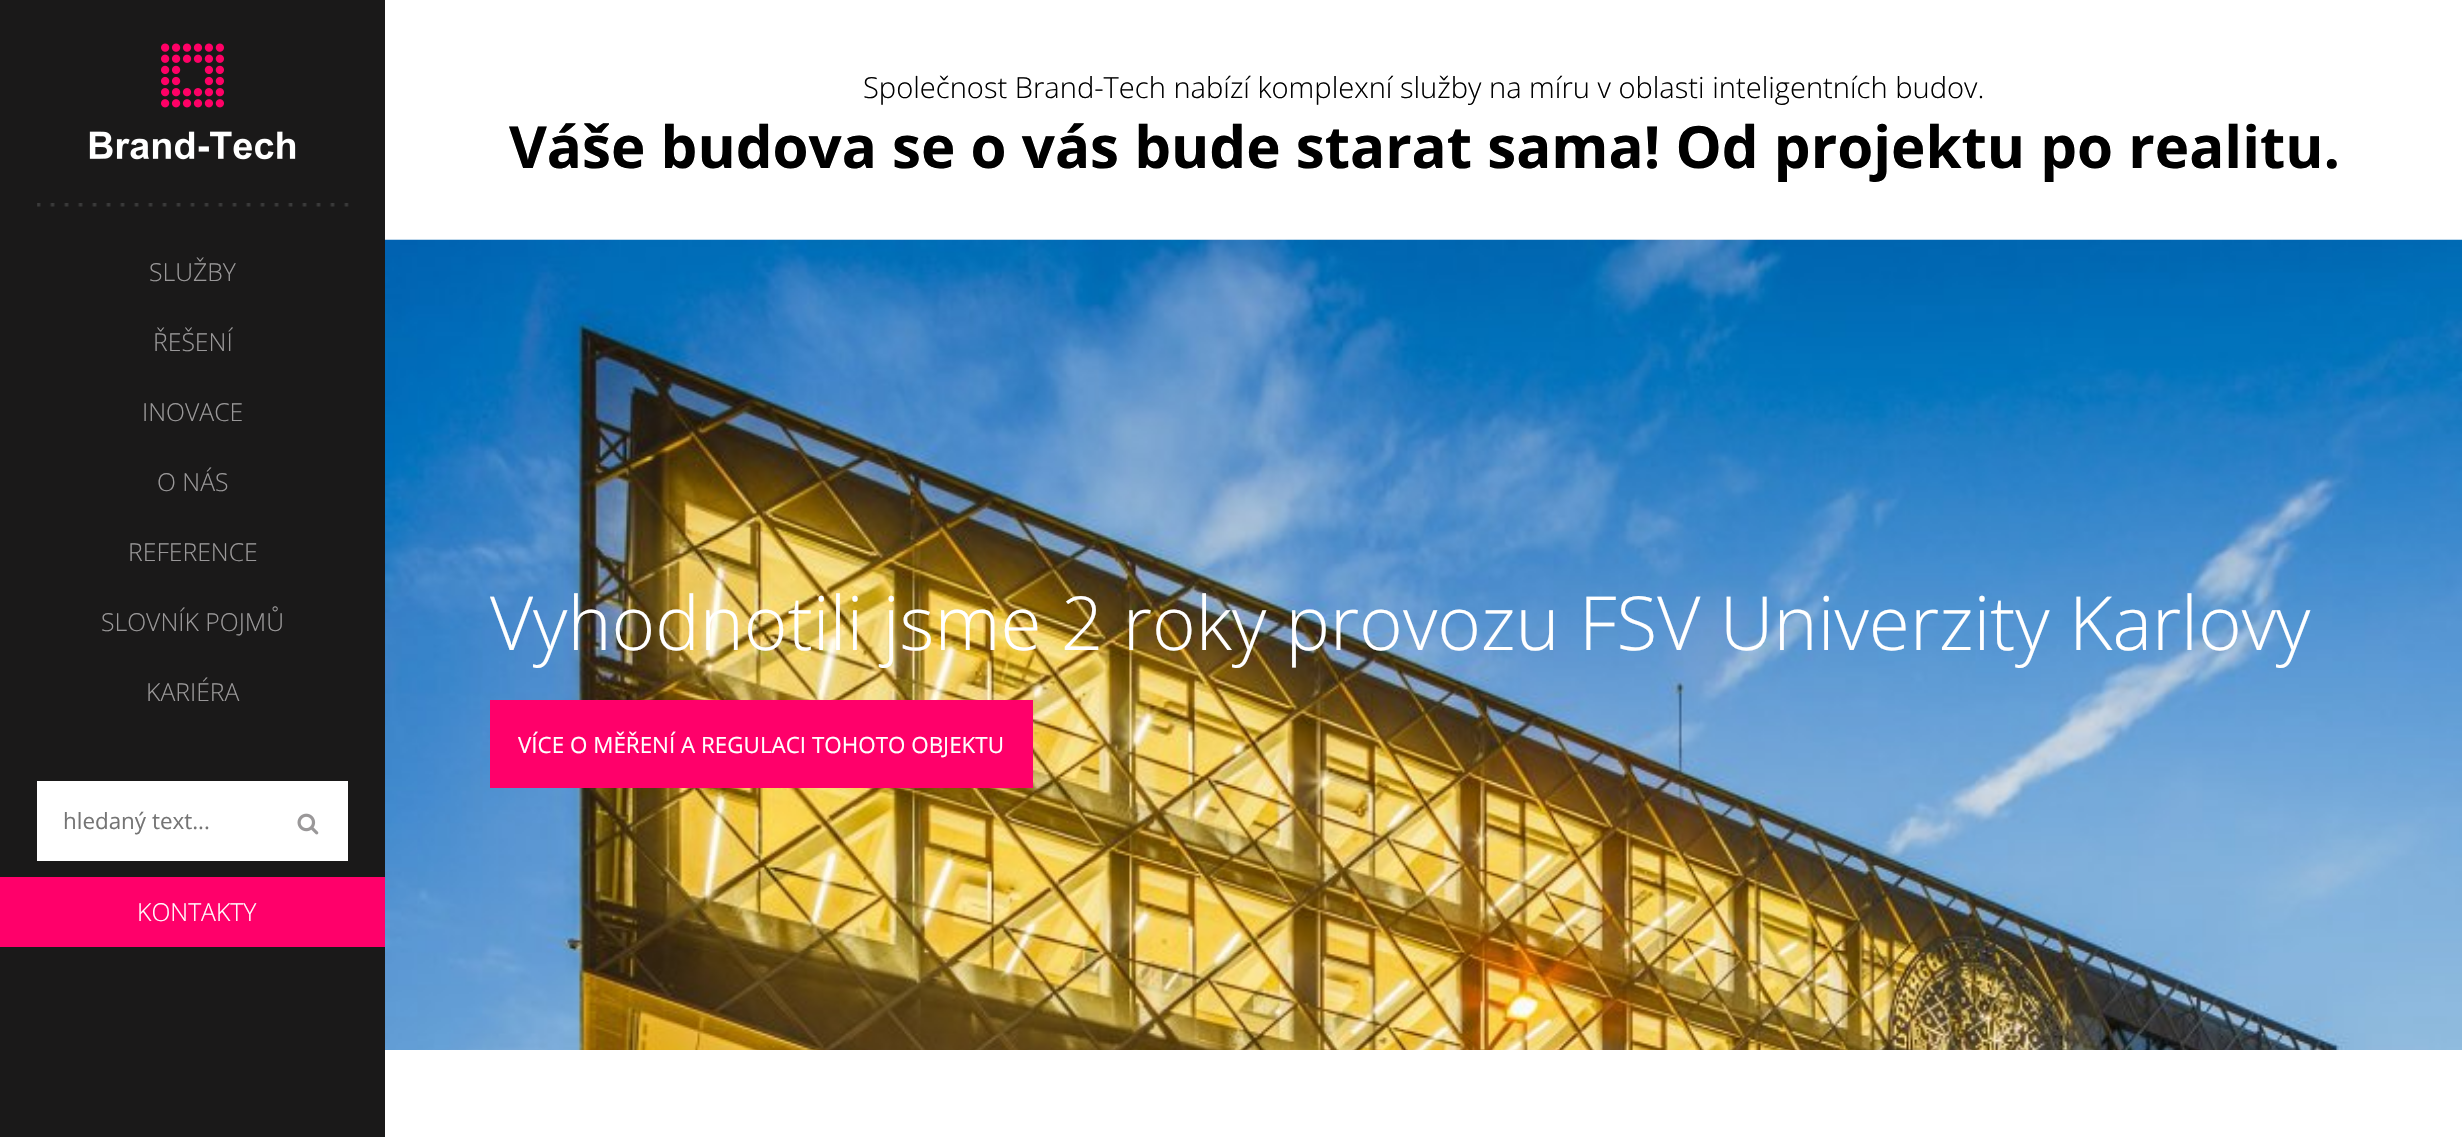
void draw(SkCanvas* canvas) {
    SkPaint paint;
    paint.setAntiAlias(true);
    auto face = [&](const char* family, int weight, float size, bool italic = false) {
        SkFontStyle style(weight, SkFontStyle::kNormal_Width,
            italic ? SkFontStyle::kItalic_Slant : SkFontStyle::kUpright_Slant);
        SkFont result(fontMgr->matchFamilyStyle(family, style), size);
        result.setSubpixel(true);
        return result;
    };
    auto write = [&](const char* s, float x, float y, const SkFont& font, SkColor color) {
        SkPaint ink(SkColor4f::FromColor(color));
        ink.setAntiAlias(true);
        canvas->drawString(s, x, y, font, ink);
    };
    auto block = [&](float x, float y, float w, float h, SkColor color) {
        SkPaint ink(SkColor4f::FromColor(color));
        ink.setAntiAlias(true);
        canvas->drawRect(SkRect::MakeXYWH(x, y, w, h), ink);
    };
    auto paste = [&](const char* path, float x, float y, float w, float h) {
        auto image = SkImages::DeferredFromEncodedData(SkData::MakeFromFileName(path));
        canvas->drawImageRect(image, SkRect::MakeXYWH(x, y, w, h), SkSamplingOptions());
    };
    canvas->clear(SK_ColorWHITE);
    block(0, 0, 385, 1137, SkColorSetRGB(26, 25, 25));
    paste("pic1.png", 89, 43, 207, 117);
    paste("pic2.png", 37, 203, 312, 4);
    auto kFont1 = face("Open Sans", 300, 24.75f);
    write("SLUŽBY", 149, 281, kFont1, SkColorSetRGB(154, 152, 153));
    write("ŘEŠENÍ", 153, 351, kFont1, SkColorSetRGB(154, 152, 153));
    write("INOVACE", 142, 421, kFont1, SkColorSetRGB(154, 152, 153));
    write("O NÁS", 157, 491, kFont1, SkColorSetRGB(154, 152, 153));
    write("REFERENCE", 128, 561, kFont1, SkColorSetRGB(154, 152, 153));
    write("SLOVNÍK POJMŮ", 101, 631, kFont1, SkColorSetRGB(154, 152, 153));
    write("KARIÉRA", 146, 701, kFont1, SkColorSetRGB(154, 152, 153));
    block(37, 781, 311, 80, SK_ColorWHITE);
    auto kFont2 = face("Open Sans", 400, 22.4f);
    write("hledaný text...", 63, 829, kFont2, SkColorSetRGB(117, 117, 117));
    paste("pic3.png", 297, 813, 22, 22);
    block(0, 877, 385, 70, SkColorSetRGB(255, 0, 106));
    write("KONTAKTY", 137, 921, kFont1, SK_ColorWHITE);
    auto kFont3 = face("Open Sans", 300, 29.1f);
    write("Společnost Brand-Tech nabízí komplexní služby na míru v oblasti inteligentních budov.", 863, 98, kFont3, SK_ColorBLACK);
    auto kFont4 = face("Open Sans", 700, 58.25f);
    write("Váše budova se o vás bude starat sama! Od projektu po realitu.", 509, 168, kFont4, SK_ColorBLACK);
    paste("pic4.png", 385, 239, 2077, 811);
    auto kFont5 = face("Open Sans", 300, 74.7f);
    write("Vyhodnotili jsme 2 roky provozu FSV Univerzity Karlovy", 490, 650, kFont5, SK_ColorWHITE);
    block(490, 700, 543, 88, SkColorSetRGB(255, 0, 106));
    write("VÍCE O MĚŘENÍ A REGULACI TOHOTO OBJEKTU", 518, 753, kFont2, SK_ColorWHITE);
}
